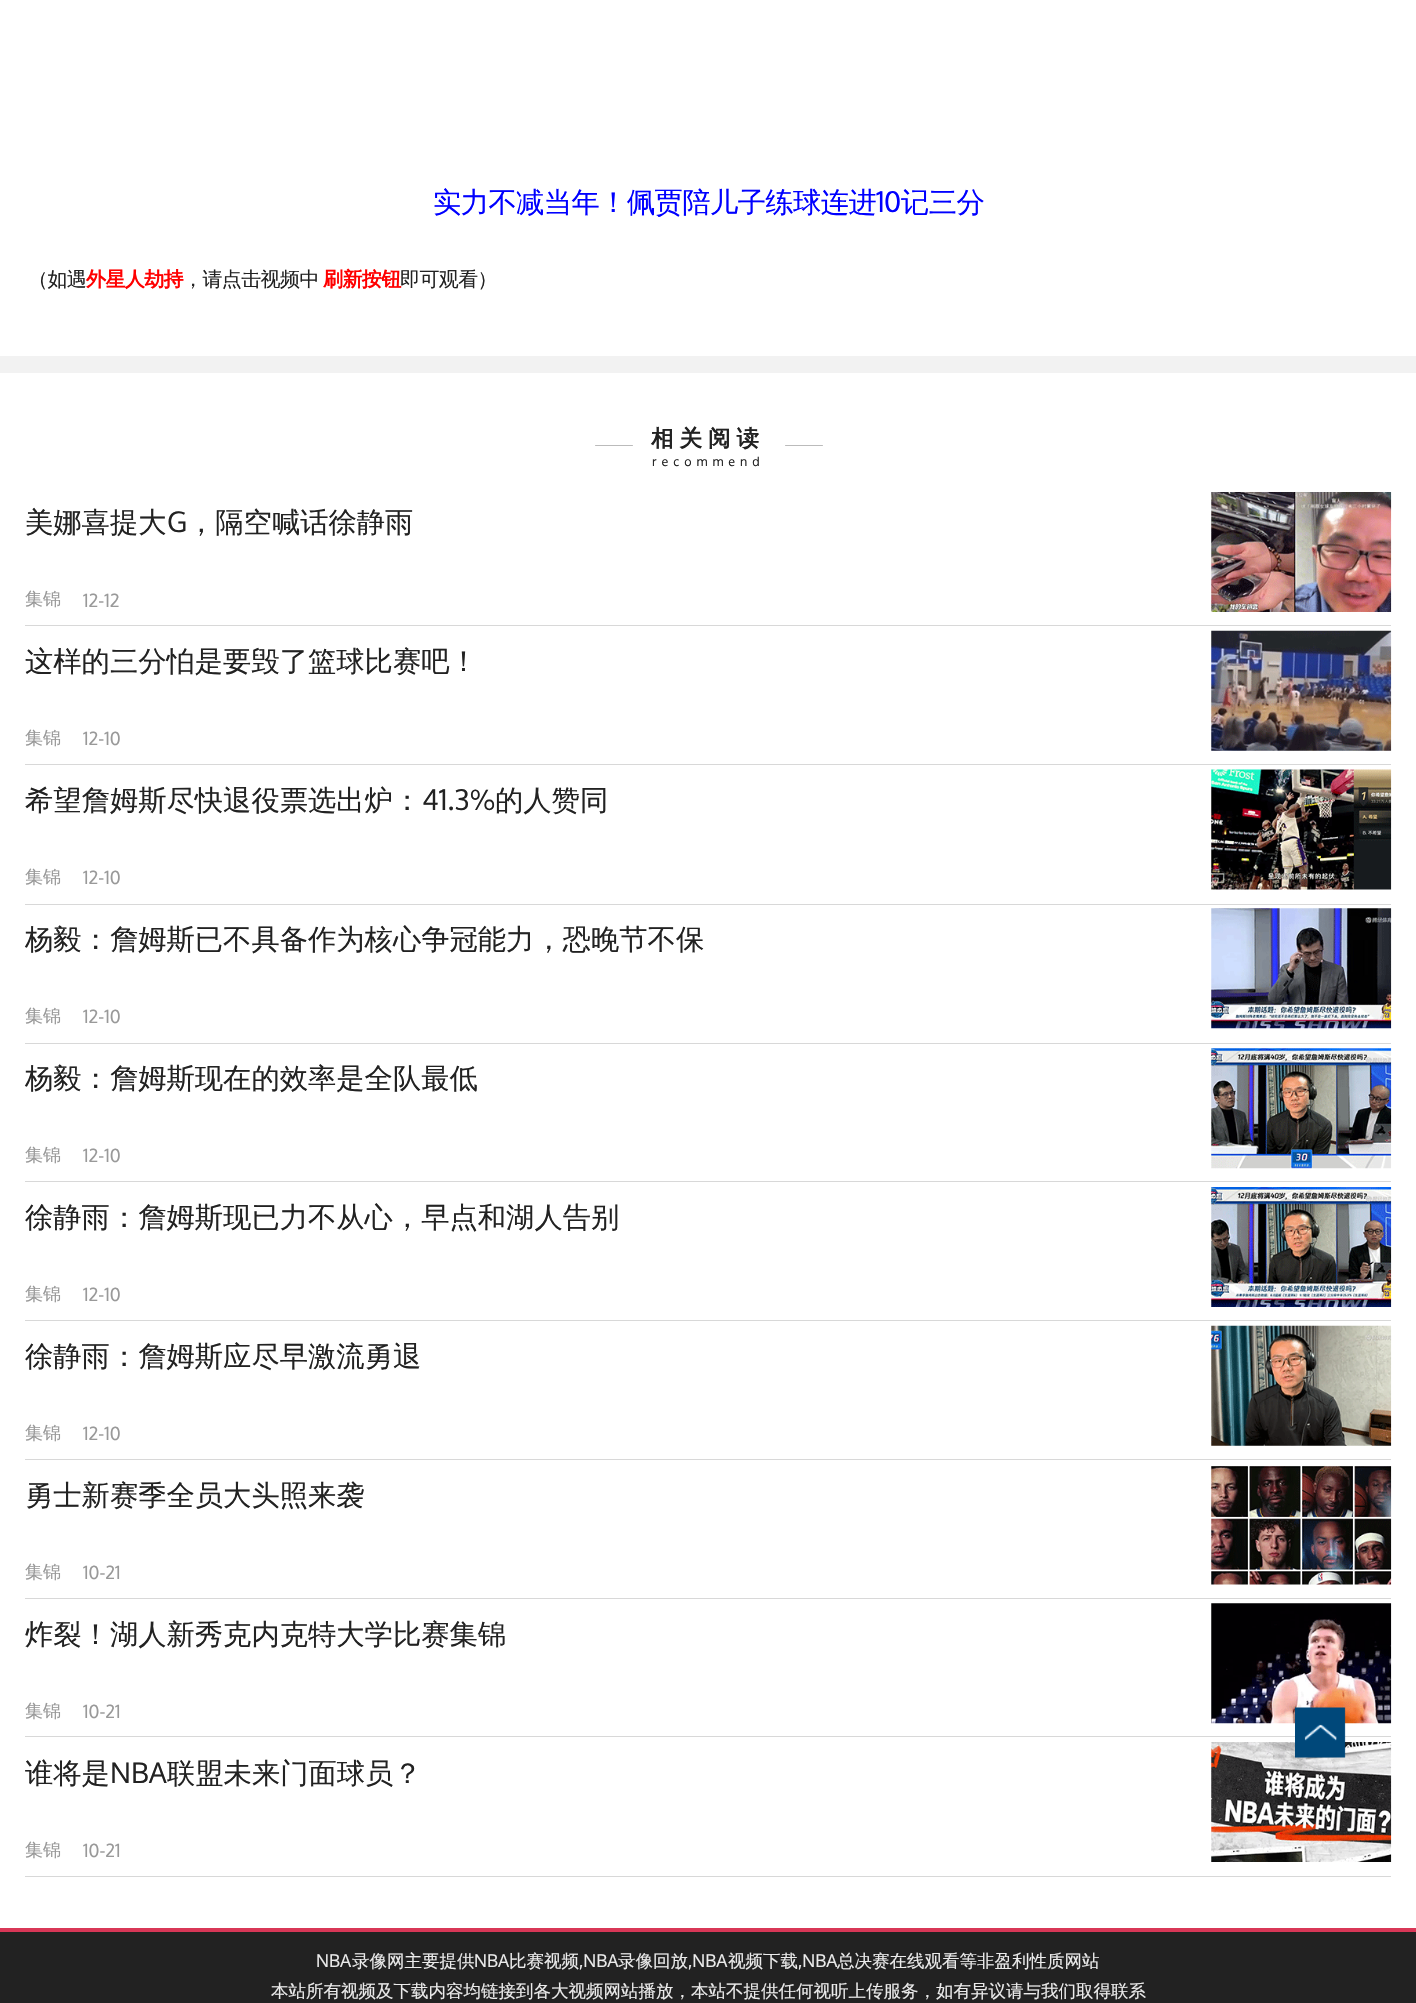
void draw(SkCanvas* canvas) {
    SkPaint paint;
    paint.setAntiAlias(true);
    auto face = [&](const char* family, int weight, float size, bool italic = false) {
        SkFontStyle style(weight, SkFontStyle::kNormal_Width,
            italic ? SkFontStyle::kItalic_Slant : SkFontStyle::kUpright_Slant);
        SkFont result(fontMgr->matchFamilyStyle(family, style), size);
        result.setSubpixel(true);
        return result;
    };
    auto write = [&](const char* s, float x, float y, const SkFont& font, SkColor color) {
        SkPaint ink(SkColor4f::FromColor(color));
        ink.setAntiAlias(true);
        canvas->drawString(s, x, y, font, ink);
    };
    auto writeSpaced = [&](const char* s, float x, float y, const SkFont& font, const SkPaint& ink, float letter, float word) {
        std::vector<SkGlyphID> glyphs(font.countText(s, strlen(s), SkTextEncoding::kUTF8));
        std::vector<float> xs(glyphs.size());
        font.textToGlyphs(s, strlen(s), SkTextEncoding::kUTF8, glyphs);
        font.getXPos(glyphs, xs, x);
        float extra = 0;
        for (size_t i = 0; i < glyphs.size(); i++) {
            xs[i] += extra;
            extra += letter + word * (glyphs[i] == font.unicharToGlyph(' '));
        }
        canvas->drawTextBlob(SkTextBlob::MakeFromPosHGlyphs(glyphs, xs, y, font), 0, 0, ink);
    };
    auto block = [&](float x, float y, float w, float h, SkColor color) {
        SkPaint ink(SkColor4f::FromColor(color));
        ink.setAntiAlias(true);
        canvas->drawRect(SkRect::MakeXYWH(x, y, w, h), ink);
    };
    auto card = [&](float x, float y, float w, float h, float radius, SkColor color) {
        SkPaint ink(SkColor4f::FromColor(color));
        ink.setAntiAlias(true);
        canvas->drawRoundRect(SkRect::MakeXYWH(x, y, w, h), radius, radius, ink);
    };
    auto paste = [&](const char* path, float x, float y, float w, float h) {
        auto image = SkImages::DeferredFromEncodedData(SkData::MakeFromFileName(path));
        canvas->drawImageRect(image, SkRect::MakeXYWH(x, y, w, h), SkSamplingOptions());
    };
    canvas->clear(SK_ColorWHITE);
    auto kFont1 = face("WenQuanYi Zen Hei", 500, 28.3f);
    paint.setColor(SkColorSetRGB(0, 0, 255));
    writeSpaced("实力不减当年！佩贾陪儿子练球连进", 433, 212, kFont1, paint, -0.6f, 0);
    auto kFont2 = face("Oxygen", 400, 28.3f);
    writeSpaced("10", 876, 212, kFont2, paint, -0.6f, 0);
    writeSpaced("记三分", 901, 212, kFont1, paint, -0.6f, 0);
    auto kFont3 = face("WenQuanYi Zen Hei", 500, 20);
    paint.setColor(SkColorSetRGB(34, 34, 34));
    writeSpaced("（如遇", 28, 286, kFont3, paint, -0.6f, 0);
    auto kFont4 = face("WenQuanYi Zen Hei", 700, 20);
    paint.setColor(SkColorSetRGB(255, 0, 0));
    writeSpaced("外星人劫持", 86, 286, kFont4, paint, -0.6f, 0);
    paint.setColor(SkColorSetRGB(34, 34, 34));
    writeSpaced("，请点击视频中", 183, 286, kFont3, paint, -0.6f, 0);
    paint.setColor(SkColorSetRGB(255, 0, 0));
    writeSpaced("刷新按钮", 323, 286, kFont4, paint, -0.6f, 0);
    paint.setColor(SkColorSetRGB(34, 34, 34));
    writeSpaced("即可观看）", 400, 286, kFont3, paint, -0.6f, 0);
    block(0, 356, 1416, 17, SkColorSetRGB(242, 242, 242));
    card(595, 445, 38, 1, 0.5f, SkColorSetRGB(187, 187, 187));
    auto kFont5 = face("WenQuanYi Zen Hei", 700, 22.5f);
    writeSpaced("相关阅读", 651, 446, kFont5, paint, 6, 0);
    auto kFont6 = face("Oxygen", 400, 12.5f);
    writeSpaced("recommend", 652, 466, kFont6, paint, 5, 0);
    card(785, 445, 38, 1, 0.5f, SkColorSetRGB(187, 187, 187));
    write("美娜喜提大", 25, 532, kFont1, SkColorSetRGB(34, 34, 34));
    write("G", 167, 532, kFont2, SkColorSetRGB(34, 34, 34));
    write("，隔空喊话徐静雨", 187, 532, kFont1, SkColorSetRGB(34, 34, 34));
    paste("pic1.png", 1211, 492, 181, 120);
    auto kFont7 = face("WenQuanYi Zen Hei", 500, 18);
    write("集锦", 25, 605, kFont7, SkColorSetRGB(153, 153, 153));
    auto kFont8 = face("Oxygen", 400, 18);
    write("12-12", 83, 607, kFont8, SkColorSetRGB(153, 153, 153));
    block(25, 625, 1366, 1, SkColorSetRGB(216, 216, 216));
    write("这样的三分怕是要毁了篮球比赛吧！", 25, 671, kFont1, SkColorSetRGB(34, 34, 34));
    paste("pic2.png", 1211, 630, 181, 121);
    write("集锦", 25, 744, kFont7, SkColorSetRGB(153, 153, 153));
    write("12-10", 83, 745, kFont8, SkColorSetRGB(153, 153, 153));
    block(25, 764, 1366, 1, SkColorSetRGB(216, 216, 216));
    write("希望詹姆斯尽快退役票选出炉：", 25, 810, kFont1, SkColorSetRGB(34, 34, 34));
    write("41.3%", 422, 810, kFont2, SkColorSetRGB(34, 34, 34));
    write("的人赞同", 495, 810, kFont1, SkColorSetRGB(34, 34, 34));
    paste("pic3.png", 1211, 769, 181, 121);
    write("集锦", 25, 883, kFont7, SkColorSetRGB(153, 153, 153));
    write("12-10", 83, 884, kFont8, SkColorSetRGB(153, 153, 153));
    block(25, 904, 1366, 1, SkColorSetRGB(216, 216, 216));
    write("杨毅：詹姆斯已不具备作为核心争冠能力，恐晚节不保", 25, 949, kFont1, SkColorSetRGB(34, 34, 34));
    paste("pic4.png", 1211, 908, 181, 121);
    write("集锦", 25, 1022, kFont7, SkColorSetRGB(153, 153, 153));
    write("12-10", 83, 1023, kFont8, SkColorSetRGB(153, 153, 153));
    block(25, 1043, 1366, 1, SkColorSetRGB(216, 216, 216));
    write("杨毅：詹姆斯现在的效率是全队最低", 25, 1088, kFont1, SkColorSetRGB(34, 34, 34));
    paste("pic5.png", 1211, 1048, 181, 121);
    write("集锦", 25, 1161, kFont7, SkColorSetRGB(153, 153, 153));
    write("12-10", 83, 1162, kFont8, SkColorSetRGB(153, 153, 153));
    block(25, 1181, 1366, 1, SkColorSetRGB(216, 216, 216));
    write("徐静雨：詹姆斯现已力不从心，早点和湖人告别", 25, 1227, kFont1, SkColorSetRGB(34, 34, 34));
    paste("pic6.png", 1211, 1187, 181, 120);
    write("集锦", 25, 1300, kFont7, SkColorSetRGB(153, 153, 153));
    write("12-10", 83, 1301, kFont8, SkColorSetRGB(153, 153, 153));
    block(25, 1320, 1366, 1, SkColorSetRGB(216, 216, 216));
    write("徐静雨：詹姆斯应尽早激流勇退", 25, 1366, kFont1, SkColorSetRGB(34, 34, 34));
    paste("pic7.png", 1211, 1325, 181, 121);
    write("集锦", 25, 1439, kFont7, SkColorSetRGB(153, 153, 153));
    write("12-10", 83, 1440, kFont8, SkColorSetRGB(153, 153, 153));
    block(25, 1459, 1366, 1, SkColorSetRGB(216, 216, 216));
    write("勇士新赛季全员大头照来袭", 25, 1505, kFont1, SkColorSetRGB(34, 34, 34));
    paste("pic8.png", 1211, 1465, 181, 120);
    write("集锦", 25, 1578, kFont7, SkColorSetRGB(153, 153, 153));
    write("10-21", 83, 1579, kFont8, SkColorSetRGB(153, 153, 153));
    block(25, 1598, 1366, 1, SkColorSetRGB(216, 216, 216));
    write("炸裂！湖人新秀克内克特大学比赛集锦", 25, 1644, kFont1, SkColorSetRGB(34, 34, 34));
    paste("pic9.png", 1211, 1603, 181, 121);
    write("集锦", 25, 1717, kFont7, SkColorSetRGB(153, 153, 153));
    write("10-21", 83, 1718, kFont8, SkColorSetRGB(153, 153, 153));
    block(25, 1736, 1366, 1, SkColorSetRGB(216, 216, 216));
    write("谁将是", 25, 1783, kFont1, SkColorSetRGB(34, 34, 34));
    write("NBA", 110, 1783, kFont2, SkColorSetRGB(34, 34, 34));
    write("联盟未来门面球员？", 167, 1783, kFont1, SkColorSetRGB(34, 34, 34));
    paste("pic10.png", 1211, 1742, 181, 120);
    write("集锦", 25, 1856, kFont7, SkColorSetRGB(153, 153, 153));
    write("10-21", 83, 1857, kFont8, SkColorSetRGB(153, 153, 153));
    block(25, 1876, 1366, 1, SkColorSetRGB(216, 216, 216));
    paste("pic11.png", 1295, 1707, 51, 51);
    block(0, 1932, 1416, 71, SkColorSetRGB(34, 34, 34));
    block(0, 1928, 1416, 4, SkColorSetRGB(217, 55, 87));
    auto kFont9 = face("Oxygen", 400, 17.5f);
    write("NBA", 316, 1967, kFont9, SkColorSetRGB(235, 235, 235));
    auto kFont10 = face("WenQuanYi Zen Hei", 500, 17.5f);
    write("录像网主要提供", 352, 1967, kFont10, SkColorSetRGB(235, 235, 235));
    write("NBA", 474, 1967, kFont9, SkColorSetRGB(235, 235, 235));
    write("比赛视频", 509, 1967, kFont10, SkColorSetRGB(235, 235, 235));
    write(",NBA", 579, 1967, kFont9, SkColorSetRGB(235, 235, 235));
    write("录像回放", 618, 1967, kFont10, SkColorSetRGB(235, 235, 235));
    write(",NBA", 688, 1967, kFont9, SkColorSetRGB(235, 235, 235));
    write("视频下载", 728, 1967, kFont10, SkColorSetRGB(235, 235, 235));
    write(",NBA", 798, 1967, kFont9, SkColorSetRGB(235, 235, 235));
    write("总决赛在线观看等非盈利性质网站", 837, 1967, kFont10, SkColorSetRGB(235, 235, 235));
    write("本站所有视频及下载内容均链接到各大视频网站播放，本站不提供任何视听上传服务，如有异议请与我们取得联系", 271, 1997, kFont10, SkColorSetRGB(235, 235, 235));
}
